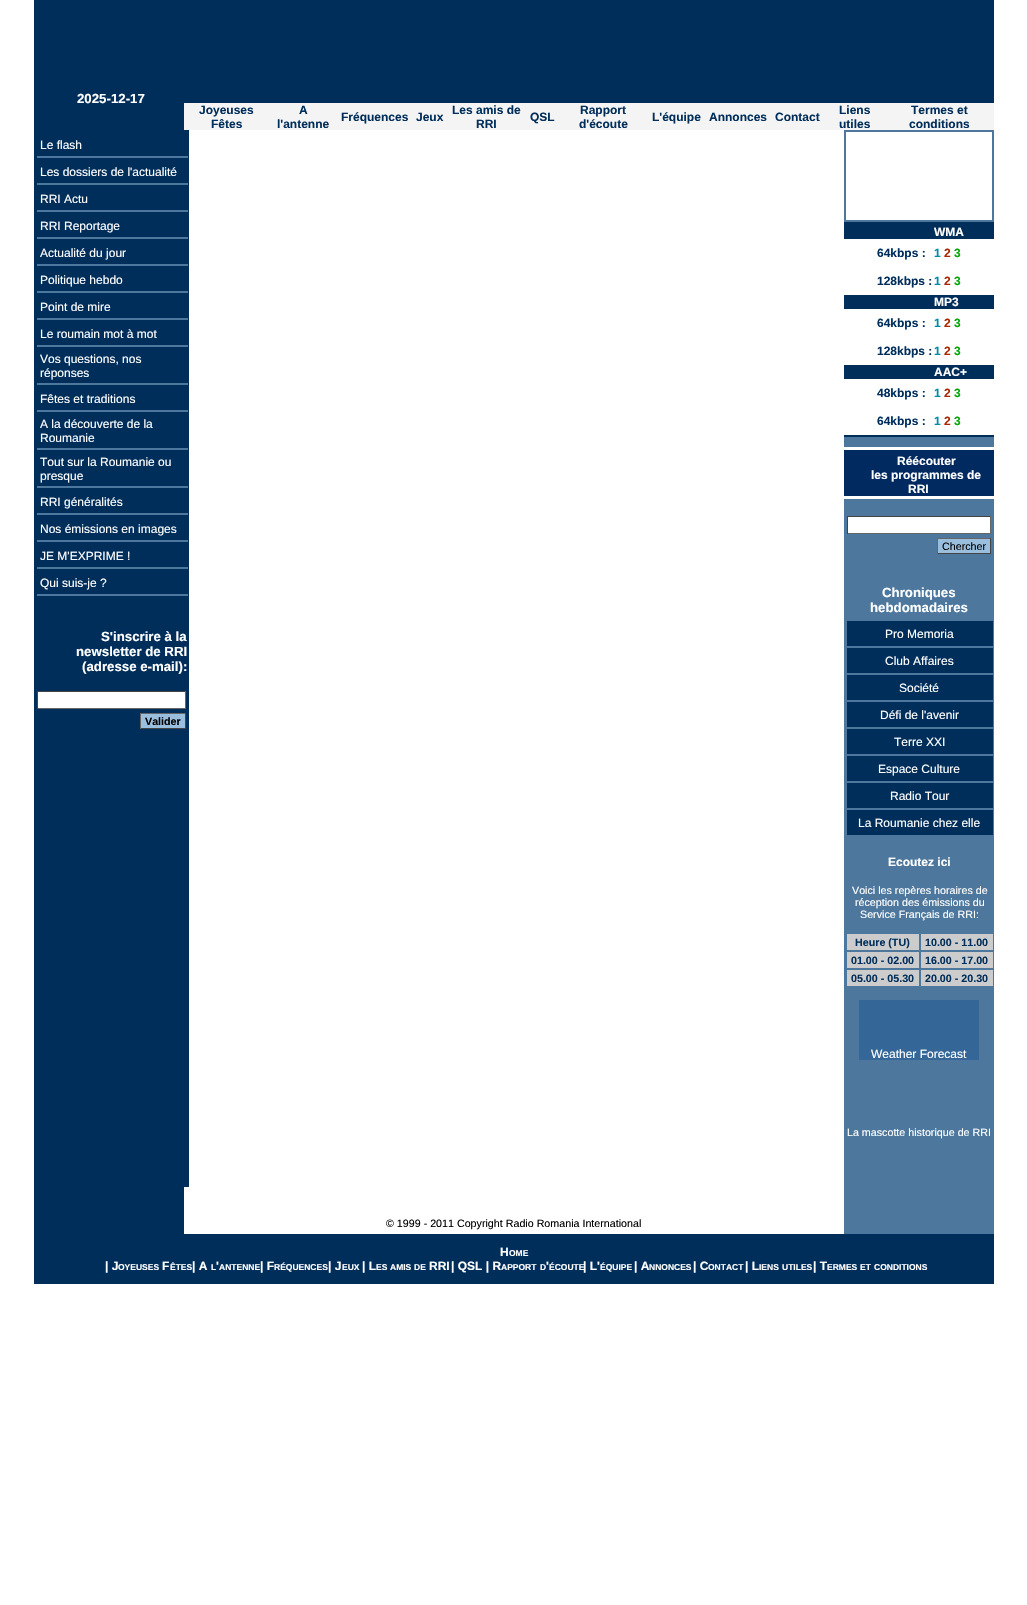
void draw(SkCanvas* canvas) {
    SkPaint paint;
    paint.setAntiAlias(true);
    auto face = [&](const char* family, int weight, float size, bool italic = false) {
        SkFontStyle style(weight, SkFontStyle::kNormal_Width,
            italic ? SkFontStyle::kItalic_Slant : SkFontStyle::kUpright_Slant);
        SkFont result(fontMgr->matchFamilyStyle(family, style), size);
        result.setSubpixel(true);
        return result;
    };
    auto write = [&](const char* s, float x, float y, const SkFont& font, SkColor color) {
        SkPaint ink(SkColor4f::FromColor(color));
        ink.setAntiAlias(true);
        canvas->drawString(s, x, y, font, ink);
    };
    auto block = [&](float x, float y, float w, float h, SkColor color) {
        SkPaint ink(SkColor4f::FromColor(color));
        ink.setAntiAlias(true);
        canvas->drawRect(SkRect::MakeXYWH(x, y, w, h), ink);
    };
    canvas->clear(SK_ColorWHITE);
    block(34, 0, 960, 130, SkColorSetRGB(0, 46, 91));
    auto kFont1 = face("Liberation Sans", 700, 13.25f);
    write("2025-12-17", 77, 103, kFont1, SK_ColorWHITE);
    block(184, 103, 810, 27, SkColorSetRGB(244, 244, 244));
    auto kFont2 = face("Liberation Sans", 700, 12);
    write("Joyeuses", 199, 114, kFont2, SkColorSetRGB(0, 46, 91));
    write("Fêtes", 211, 128, kFont2, SkColorSetRGB(0, 46, 91));
    write("A", 299, 114, kFont2, SkColorSetRGB(0, 46, 91));
    write("l'antenne", 277, 128, kFont2, SkColorSetRGB(0, 46, 91));
    write("Fréquences", 341, 121, kFont2, SkColorSetRGB(0, 46, 91));
    write("Jeux", 416, 121, kFont2, SkColorSetRGB(0, 46, 91));
    write("Les amis de", 452, 114, kFont2, SkColorSetRGB(0, 46, 91));
    write("RRI", 476, 128, kFont2, SkColorSetRGB(0, 46, 91));
    write("QSL", 530, 121, kFont2, SkColorSetRGB(0, 46, 91));
    write("Rapport", 580, 114, kFont2, SkColorSetRGB(0, 46, 91));
    write("d'écoute", 579, 128, kFont2, SkColorSetRGB(0, 46, 91));
    write("L'équipe", 652, 121, kFont2, SkColorSetRGB(0, 46, 91));
    write("Annonces", 709, 121, kFont2, SkColorSetRGB(0, 46, 91));
    write("Contact", 775, 121, kFont2, SkColorSetRGB(0, 46, 91));
    write("Liens", 839, 114, kFont2, SkColorSetRGB(0, 46, 91));
    write("utiles", 839, 128, kFont2, SkColorSetRGB(0, 46, 91));
    write("Termes et", 911, 114, kFont2, SkColorSetRGB(0, 46, 91));
    write("conditions", 909, 128, kFont2, SkColorSetRGB(0, 46, 91));
    block(34, 130, 155, 1057, SkColorSetRGB(0, 46, 91));
    block(37, 156, 151, 2, SkColorSetRGB(77, 119, 156));
    auto kFont3 = face("Liberation Sans", 400, 12);
    write("Le flash", 40, 149, kFont3, SK_ColorWHITE);
    block(37, 183, 151, 2, SkColorSetRGB(77, 119, 156));
    write("Les dossiers de l'actualité", 40, 176, kFont3, SK_ColorWHITE);
    block(37, 210, 151, 2, SkColorSetRGB(77, 119, 156));
    write("RRI Actu", 40, 203, kFont3, SK_ColorWHITE);
    block(37, 237, 151, 2, SkColorSetRGB(77, 119, 156));
    write("RRI Reportage", 40, 230, kFont3, SK_ColorWHITE);
    block(37, 264, 151, 2, SkColorSetRGB(77, 119, 156));
    write("Actualité du jour", 40, 257, kFont3, SK_ColorWHITE);
    block(37, 291, 151, 2, SkColorSetRGB(77, 119, 156));
    write("Politique hebdo", 40, 284, kFont3, SK_ColorWHITE);
    block(37, 318, 151, 2, SkColorSetRGB(77, 119, 156));
    write("Point de mire", 40, 311, kFont3, SK_ColorWHITE);
    block(37, 345, 151, 2, SkColorSetRGB(77, 119, 156));
    write("Le roumain mot à mot", 40, 338, kFont3, SK_ColorWHITE);
    block(37, 383, 151, 2, SkColorSetRGB(77, 119, 156));
    write("Vos questions, nos", 40, 363, kFont3, SK_ColorWHITE);
    write("réponses", 40, 377, kFont3, SK_ColorWHITE);
    block(37, 410, 151, 2, SkColorSetRGB(77, 119, 156));
    write("Fêtes et traditions", 40, 403, kFont3, SK_ColorWHITE);
    block(37, 448, 151, 2, SkColorSetRGB(77, 119, 156));
    write("A la découverte de la", 40, 428, kFont3, SK_ColorWHITE);
    write("Roumanie", 40, 442, kFont3, SK_ColorWHITE);
    block(37, 486, 151, 2, SkColorSetRGB(77, 119, 156));
    write("Tout sur la Roumanie ou", 40, 466, kFont3, SK_ColorWHITE);
    write("presque", 40, 480, kFont3, SK_ColorWHITE);
    block(37, 513, 151, 2, SkColorSetRGB(77, 119, 156));
    write("RRI généralités", 40, 506, kFont3, SK_ColorWHITE);
    block(37, 540, 151, 2, SkColorSetRGB(77, 119, 156));
    write("Nos émissions en images", 40, 533, kFont3, SK_ColorWHITE);
    block(37, 567, 151, 2, SkColorSetRGB(77, 119, 156));
    write("JE M'EXPRIME !", 40, 560, kFont3, SK_ColorWHITE);
    block(37, 594, 151, 2, SkColorSetRGB(77, 119, 156));
    write("Qui suis-je ?", 40, 587, kFont3, SK_ColorWHITE);
    write("S'inscrire à la", 101, 641, kFont1, SK_ColorWHITE);
    write("newsletter de RRI", 76, 656, kFont1, SK_ColorWHITE);
    write("(adresse e-mail):", 82, 671, kFont1, SK_ColorWHITE);
    block(38, 692, 147, 16, SK_ColorWHITE);
    block(37, 691, 149, 1, SkColorSetRGB(68, 68, 68));
    block(185, 691, 1, 18, SkColorSetRGB(102, 102, 102));
    block(37, 708, 149, 1, SkColorSetRGB(102, 102, 102));
    block(37, 691, 1, 18, SkColorSetRGB(68, 68, 68));
    block(141, 714, 44, 14, SkColorSetRGB(154, 190, 221));
    block(140, 713, 46, 1, SkColorSetRGB(102, 102, 102));
    block(185, 713, 1, 16, SkColorSetRGB(68, 68, 68));
    block(140, 728, 46, 1, SkColorSetRGB(68, 68, 68));
    block(140, 713, 1, 16, SkColorSetRGB(102, 102, 102));
    auto kFont4 = face("Liberation Sans", 700, 10.7f);
    write("Valider", 145, 725, kFont4, SK_ColorBLACK);
    block(844, 130, 150, 1104, SkColorSetRGB(77, 119, 156));
    block(846, 132, 146, 88, SK_ColorWHITE);
    block(844, 222, 150, 215, SkColorSetRGB(0, 46, 91));
    write("WMA", 934, 236, kFont2, SK_ColorWHITE);
    block(844, 239, 150, 28, SK_ColorWHITE);
    write("64kbps :", 877, 257, kFont2, SkColorSetRGB(0, 46, 91));
    write("1", 934, 257, kFont2, SkColorSetRGB(0, 140, 166));
    write("2", 944, 257, kFont2, SkColorSetRGB(166, 39, 0));
    write("3", 954, 257, kFont2, SkColorSetRGB(1, 166, 5));
    block(844, 267, 150, 28, SK_ColorWHITE);
    write("128kbps :", 877, 285, kFont2, SkColorSetRGB(0, 46, 91));
    write("1", 934, 285, kFont2, SkColorSetRGB(0, 140, 166));
    write("2", 944, 285, kFont2, SkColorSetRGB(166, 39, 0));
    write("3", 954, 285, kFont2, SkColorSetRGB(1, 166, 5));
    write("MP3", 934, 306, kFont2, SK_ColorWHITE);
    block(844, 309, 150, 28, SK_ColorWHITE);
    write("64kbps :", 877, 327, kFont2, SkColorSetRGB(0, 46, 91));
    write("1", 934, 327, kFont2, SkColorSetRGB(0, 140, 166));
    write("2", 944, 327, kFont2, SkColorSetRGB(166, 39, 0));
    write("3", 954, 327, kFont2, SkColorSetRGB(1, 166, 5));
    block(844, 337, 150, 28, SK_ColorWHITE);
    write("128kbps :", 877, 355, kFont2, SkColorSetRGB(0, 46, 91));
    write("1", 934, 355, kFont2, SkColorSetRGB(0, 140, 166));
    write("2", 944, 355, kFont2, SkColorSetRGB(166, 39, 0));
    write("3", 954, 355, kFont2, SkColorSetRGB(1, 166, 5));
    write("AAC+", 934, 376, kFont2, SK_ColorWHITE);
    block(844, 379, 150, 28, SK_ColorWHITE);
    write("48kbps :", 877, 397, kFont2, SkColorSetRGB(0, 46, 91));
    write("1", 934, 397, kFont2, SkColorSetRGB(0, 140, 166));
    write("2", 944, 397, kFont2, SkColorSetRGB(166, 39, 0));
    write("3", 954, 397, kFont2, SkColorSetRGB(1, 166, 5));
    block(844, 407, 150, 28, SK_ColorWHITE);
    write("64kbps :", 877, 425, kFont2, SkColorSetRGB(0, 46, 91));
    write("1", 934, 425, kFont2, SkColorSetRGB(0, 140, 166));
    write("2", 944, 425, kFont2, SkColorSetRGB(166, 39, 0));
    write("3", 954, 425, kFont2, SkColorSetRGB(1, 166, 5));
    block(844, 450, 150, 46, SkColorSetRGB(1, 42, 97));
    block(844, 447, 150, 3, SK_ColorWHITE);
    block(844, 496, 150, 3, SK_ColorWHITE);
    write("Réécouter", 897, 465, kFont2, SK_ColorWHITE);
    write("les programmes de", 871, 479, kFont2, SK_ColorWHITE);
    write("RRI", 908, 493, kFont2, SK_ColorWHITE);
    block(848, 517, 142, 16, SK_ColorWHITE);
    block(847, 516, 144, 1, SkColorSetRGB(68, 68, 68));
    block(990, 516, 1, 18, SkColorSetRGB(102, 102, 102));
    block(847, 533, 144, 1, SkColorSetRGB(102, 102, 102));
    block(847, 516, 1, 18, SkColorSetRGB(68, 68, 68));
    block(938, 539, 52, 14, SkColorSetRGB(154, 190, 221));
    block(937, 538, 54, 1, SkColorSetRGB(102, 102, 102));
    block(990, 538, 1, 16, SkColorSetRGB(68, 68, 68));
    block(937, 553, 54, 1, SkColorSetRGB(68, 68, 68));
    block(937, 538, 1, 16, SkColorSetRGB(102, 102, 102));
    auto kFont5 = face("Liberation Sans", 400, 10.7f);
    write("Chercher", 942, 550, kFont5, SK_ColorBLACK);
    write("Chroniques", 882, 597, kFont1, SK_ColorWHITE);
    write("hebdomadaires", 870, 612, kFont1, SK_ColorWHITE);
    block(847, 621, 146, 25, SkColorSetRGB(0, 46, 91));
    write("Pro Memoria", 885, 638, kFont3, SK_ColorWHITE);
    block(847, 648, 146, 25, SkColorSetRGB(0, 46, 91));
    write("Club Affaires", 885, 665, kFont3, SK_ColorWHITE);
    block(847, 675, 146, 25, SkColorSetRGB(0, 46, 91));
    write("Société", 899, 692, kFont3, SK_ColorWHITE);
    block(847, 702, 146, 25, SkColorSetRGB(0, 46, 91));
    write("Défi de l'avenir", 880, 719, kFont3, SK_ColorWHITE);
    block(847, 729, 146, 25, SkColorSetRGB(0, 46, 91));
    write("Terre XXI", 894, 746, kFont3, SK_ColorWHITE);
    block(847, 756, 146, 25, SkColorSetRGB(0, 46, 91));
    write("Espace Culture", 878, 773, kFont3, SK_ColorWHITE);
    block(847, 783, 146, 25, SkColorSetRGB(0, 46, 91));
    write("Radio Tour", 890, 800, kFont3, SK_ColorWHITE);
    block(847, 810, 146, 25, SkColorSetRGB(0, 46, 91));
    write("La Roumanie chez elle", 858, 827, kFont3, SK_ColorWHITE);
    write("Ecoutez ici", 888, 866, kFont2, SK_ColorWHITE);
    write("Voici les repères horaires de", 852, 894, kFont5, SK_ColorWHITE);
    write("réception des émissions du", 855, 906, kFont5, SK_ColorWHITE);
    write("Service Français de RRI:", 860, 918, kFont5, SK_ColorWHITE);
    block(847, 934, 72, 16, SkColorSetRGB(204, 204, 204));
    write("Heure (TU)", 855, 946, kFont4, SkColorSetRGB(0, 46, 91));
    block(921, 934, 72, 16, SkColorSetRGB(204, 204, 204));
    write("10.00 - 11.00", 925, 946, kFont4, SkColorSetRGB(0, 46, 91));
    block(847, 952, 72, 16, SkColorSetRGB(204, 204, 204));
    write("01.00 - 02.00", 851, 964, kFont4, SkColorSetRGB(0, 46, 91));
    block(921, 952, 72, 16, SkColorSetRGB(204, 204, 204));
    write("16.00 - 17.00", 925, 964, kFont4, SkColorSetRGB(0, 46, 91));
    block(847, 970, 72, 16, SkColorSetRGB(204, 204, 204));
    write("05.00 - 05.30", 851, 982, kFont4, SkColorSetRGB(0, 46, 91));
    block(921, 970, 72, 16, SkColorSetRGB(204, 204, 204));
    write("20.00 - 20.30", 925, 982, kFont4, SkColorSetRGB(0, 46, 91));
    block(859, 1000, 120, 60, SkColorSetRGB(52, 103, 151));
    write("Weather Forecast", 871, 1058, kFont3, SK_ColorWHITE);
    write("La mascotte historique de RRI", 847, 1136, kFont5, SK_ColorWHITE);
    block(34, 1187, 150, 47, SkColorSetRGB(0, 46, 91));
    write("© 1999 - 2011 Copyright Radio Romania International", 386, 1227, kFont5, SK_ColorBLACK);
    block(34, 1234, 960, 50, SkColorSetRGB(0, 46, 91));
    write("H", 500, 1256, kFont2, SK_ColorWHITE);
    auto kFont6 = face("Liberation Sans", 700, 8.5f);
    write("OME", 509, 1256, kFont6, SK_ColorWHITE);
    write("| J", 105, 1270, kFont2, SK_ColorWHITE);
    write("OYEUSES", 118, 1270, kFont6, SK_ColorWHITE);
    write("F", 162, 1270, kFont2, SK_ColorWHITE);
    write("ÊTES", 170, 1270, kFont6, SK_ColorWHITE);
    write("| A", 192, 1270, kFont2, SK_ColorWHITE);
    write("L", 211, 1270, kFont6, SK_ColorWHITE);
    write("'", 216, 1270, kFont2, SK_ColorWHITE);
    write("ANTENNE", 219, 1270, kFont6, SK_ColorWHITE);
    write("| F", 260, 1270, kFont2, SK_ColorWHITE);
    write("RÉQUENCES", 274, 1270, kFont6, SK_ColorWHITE);
    write("| J", 328, 1270, kFont2, SK_ColorWHITE);
    write("EUX", 342, 1270, kFont6, SK_ColorWHITE);
    write("| L", 362, 1270, kFont2, SK_ColorWHITE);
    write("ES", 376, 1270, kFont6, SK_ColorWHITE);
    write("AMIS", 390, 1270, kFont6, SK_ColorWHITE);
    write("DE", 414, 1270, kFont6, SK_ColorWHITE);
    write("RRI", 429, 1270, kFont2, SK_ColorWHITE);
    write("| QSL | R", 451, 1270, kFont2, SK_ColorWHITE);
    write("APPORT", 501, 1270, kFont6, SK_ColorWHITE);
    write("D", 540, 1270, kFont6, SK_ColorWHITE);
    write("'", 546, 1270, kFont2, SK_ColorWHITE);
    write("ÉCOUTE", 549, 1270, kFont6, SK_ColorWHITE);
    write("| L'", 583, 1270, kFont2, SK_ColorWHITE);
    write("ÉQUIPE", 600, 1270, kFont6, SK_ColorWHITE);
    write("| A", 634, 1270, kFont2, SK_ColorWHITE);
    write("NNONCES", 649, 1270, kFont6, SK_ColorWHITE);
    write("| C", 693, 1270, kFont2, SK_ColorWHITE);
    write("ONTACT", 708, 1270, kFont6, SK_ColorWHITE);
    write("| L", 745, 1270, kFont2, SK_ColorWHITE);
    write("IENS", 759, 1270, kFont6, SK_ColorWHITE);
    write("UTILES", 782, 1270, kFont6, SK_ColorWHITE);
    write("| T", 813, 1270, kFont2, SK_ColorWHITE);
    write("ERMES", 827, 1270, kFont6, SK_ColorWHITE);
    write("ET", 860, 1270, kFont6, SK_ColorWHITE);
    write("CONDITIONS", 874, 1270, kFont6, SK_ColorWHITE);
}
